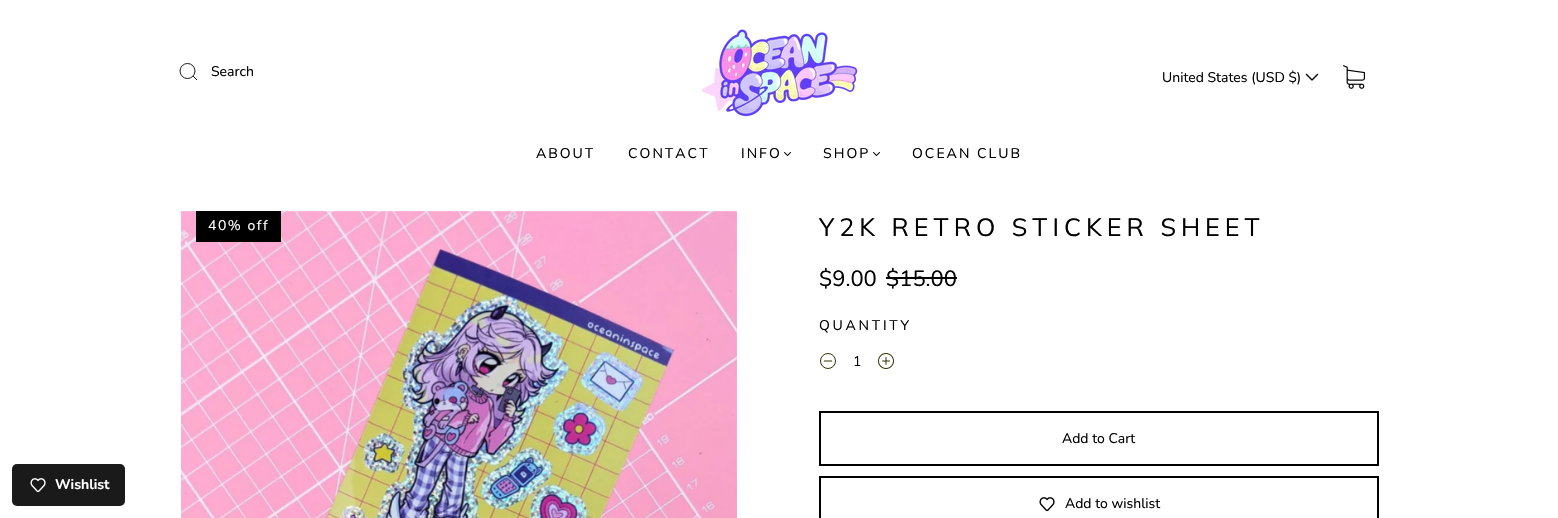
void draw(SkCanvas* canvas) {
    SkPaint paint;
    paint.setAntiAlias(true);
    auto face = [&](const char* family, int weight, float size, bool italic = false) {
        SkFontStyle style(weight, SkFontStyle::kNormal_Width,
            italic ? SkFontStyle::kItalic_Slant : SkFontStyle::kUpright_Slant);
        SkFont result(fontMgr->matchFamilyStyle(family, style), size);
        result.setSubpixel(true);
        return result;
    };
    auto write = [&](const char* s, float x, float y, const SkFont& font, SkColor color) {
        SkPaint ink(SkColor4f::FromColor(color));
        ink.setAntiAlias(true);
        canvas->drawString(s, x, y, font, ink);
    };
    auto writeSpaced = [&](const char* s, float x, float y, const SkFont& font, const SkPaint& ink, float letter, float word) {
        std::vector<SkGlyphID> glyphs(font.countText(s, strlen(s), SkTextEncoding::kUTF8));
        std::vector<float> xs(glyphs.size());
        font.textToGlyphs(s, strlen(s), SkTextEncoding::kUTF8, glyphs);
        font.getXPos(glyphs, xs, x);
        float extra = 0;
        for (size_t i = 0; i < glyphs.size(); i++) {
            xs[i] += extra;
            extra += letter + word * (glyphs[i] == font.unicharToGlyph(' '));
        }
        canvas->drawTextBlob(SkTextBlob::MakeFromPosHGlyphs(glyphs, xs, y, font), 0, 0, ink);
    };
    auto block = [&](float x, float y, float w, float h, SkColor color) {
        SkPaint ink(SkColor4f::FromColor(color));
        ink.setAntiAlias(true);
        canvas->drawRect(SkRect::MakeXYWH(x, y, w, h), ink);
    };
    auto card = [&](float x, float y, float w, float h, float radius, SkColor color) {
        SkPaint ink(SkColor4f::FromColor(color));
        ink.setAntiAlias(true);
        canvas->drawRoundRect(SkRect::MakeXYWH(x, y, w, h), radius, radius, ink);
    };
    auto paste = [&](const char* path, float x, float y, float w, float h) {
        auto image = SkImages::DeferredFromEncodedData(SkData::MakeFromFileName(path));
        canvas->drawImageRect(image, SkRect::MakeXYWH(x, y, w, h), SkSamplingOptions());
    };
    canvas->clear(SK_ColorWHITE);
    card(12, 464, 113, 42, 5, SkColorSetRGB(26, 26, 26));
    paste("pic1.png", 30, 478, 16, 15);
    auto kFont1 = face("Nunito", 700, 14);
    write("Wishlist", 55, 489, kFont1, SK_ColorWHITE);
    paint.setStyle(SkPaint::kStroke_Style);
    paint.setStrokeWidth(0.9f);
    paint.setColor(SK_ColorBLACK);
    canvas->drawCircle(187.5f, 71, 7.5f, paint);
    canvas->save();
    canvas->clipRect(SkRect::MakeXYWH(179, 63, 18, 17));
    canvas->drawPath(SkPathBuilder().moveTo(193, 76).lineTo(198.5f, 81.5f).detach(), paint);
    canvas->restore();
    auto kFont2 = face("Nunito", 200, 14);
    write("Search", 211, 76, kFont2, SK_ColorBLACK);
    paste("pic2.png", 702, 29, 156, 88);
    write("United States (USD $)", 1162, 82, kFont2, SK_ColorBLACK);
    paste("pic3.png", 1305, 73, 14, 8);
    paste("pic4.png", 1343, 65, 22, 24);
    auto kFont3 = face("Muli", 400, 14);
    paint.setStyle(SkPaint::kFill_Style);
    writeSpaced("ABOUT", 536, 158, kFont3, paint, 2, 0);
    writeSpaced("CONTACT", 628, 158, kFont3, paint, 2, 0);
    writeSpaced("INFO", 741, 158, kFont3, paint, 2, 0);
    paste("pic5.png", 784, 152, 7, 4);
    writeSpaced("SHOP", 823, 158, kFont3, paint, 2, 0);
    paste("pic5.png", 873, 152, 7, 4);
    writeSpaced("OCEAN CLUB", 912, 158, kFont3, paint, 2, 0);
    paste("pic6.png", 181, 211, 556, 307);
    block(196, 211, 85, 31, SK_ColorBLACK);
    paint.setColor(SK_ColorWHITE);
    writeSpaced("40% off", 208, 230, kFont2, paint, 1.5f, 0);
    auto kFont4 = face("Muli", 400, 25);
    paint.setColor(SK_ColorBLACK);
    writeSpaced("Y2K RETRO STICKER SHEET", 819, 236, kFont4, paint, 5, 0);
    auto kFont5 = face("Nunito", 200, 22);
    write("$9.00", 819, 286, kFont5, SK_ColorBLACK);
    write("$15.00", 886, 286, kFont5, SK_ColorBLACK);
    block(886, 277, 71, 2, SK_ColorBLACK);
    writeSpaced("QUANTITY", 819, 330, kFont3, paint, 2.75f, 0);
    paint.setStyle(SkPaint::kStroke_Style);
    paint.setStrokeWidth(1);
    paint.setColor(SkColorSetRGB(51, 51, 0));
    canvas->drawCircle(828, 361, 7.5f, paint);
    paint.setStrokeCap(SkPaint::kSquare_Cap);
    canvas->drawPath(SkPathBuilder().moveTo(824.5f, 361).lineTo(831.5f, 361).detach(), paint);
    write("1", 853, 366, kFont2, SK_ColorBLACK);
    paste("pic7.png", 878, 353, 16, 16);
    paint.setStrokeWidth(2);
    paint.setStrokeCap(SkPaint::kButt_Cap);
    paint.setColor(SK_ColorBLACK);
    canvas->drawRect(SkRect::MakeXYWH(820, 412, 558, 53), paint);
    write("Add to Cart", 1062, 443, kFont2, SK_ColorBLACK);
    canvas->drawRect(SkRect::MakeXYWH(820, 477, 558, 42), paint);
    paste("pic8.png", 1039, 497, 16, 15);
    write("Add to wishlist", 1065, 508, kFont2, SK_ColorBLACK);
}
